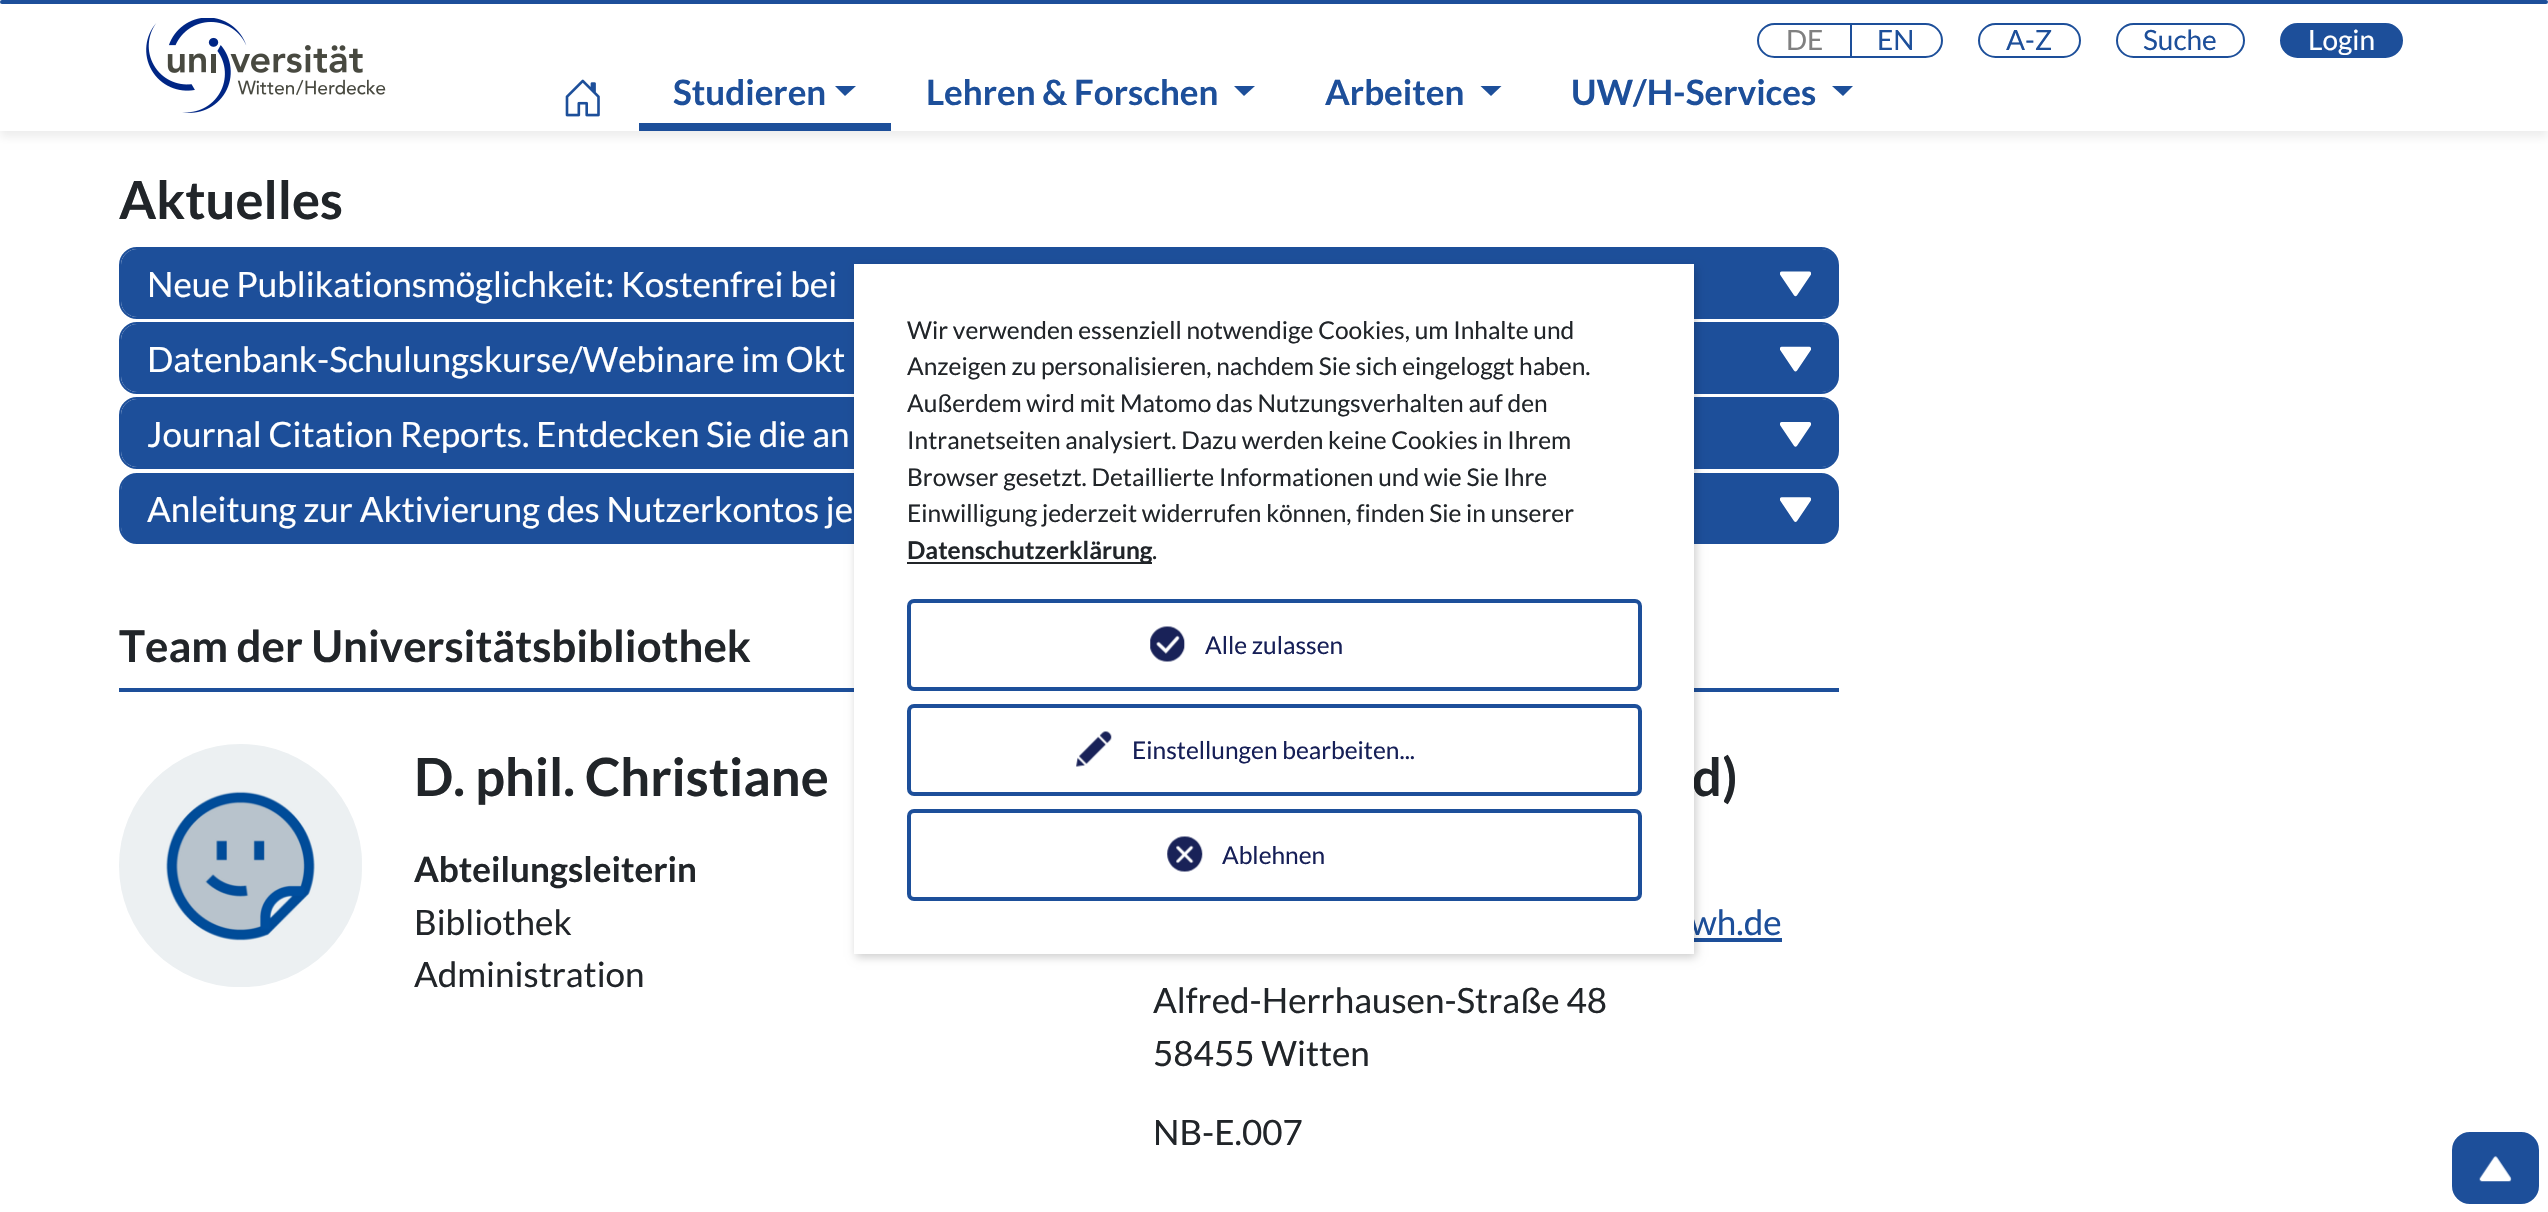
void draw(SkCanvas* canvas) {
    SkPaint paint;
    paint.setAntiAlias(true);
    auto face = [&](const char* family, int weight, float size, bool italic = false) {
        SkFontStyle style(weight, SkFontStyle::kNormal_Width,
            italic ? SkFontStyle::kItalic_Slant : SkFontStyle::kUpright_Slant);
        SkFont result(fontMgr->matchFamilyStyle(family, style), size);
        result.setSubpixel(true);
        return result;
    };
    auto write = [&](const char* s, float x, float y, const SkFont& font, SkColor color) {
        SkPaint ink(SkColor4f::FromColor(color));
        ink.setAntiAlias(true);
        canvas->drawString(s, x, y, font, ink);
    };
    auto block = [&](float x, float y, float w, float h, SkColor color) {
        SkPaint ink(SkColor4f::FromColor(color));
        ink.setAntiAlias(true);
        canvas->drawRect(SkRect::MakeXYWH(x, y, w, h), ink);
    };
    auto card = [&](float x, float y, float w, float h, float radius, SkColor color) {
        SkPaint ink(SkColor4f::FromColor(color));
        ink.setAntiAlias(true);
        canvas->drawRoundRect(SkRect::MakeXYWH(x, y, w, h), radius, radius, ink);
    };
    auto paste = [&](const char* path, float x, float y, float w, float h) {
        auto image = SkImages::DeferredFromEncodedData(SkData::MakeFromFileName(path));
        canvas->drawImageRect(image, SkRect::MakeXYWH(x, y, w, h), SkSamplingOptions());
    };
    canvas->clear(SK_ColorWHITE);
    paint.setColor(SkColorSetARGB(18, 0, 0, 0));
    paint.setMaskFilter(SkMaskFilter::MakeBlur(kNormal_SkBlurStyle, 4.5f));
    canvas->drawRect(SkRect::MakeXYWH(0, 5, 2548, 132), paint);
    paint.setMaskFilter(nullptr);
    block(0, 0, 2548, 131, SK_ColorWHITE);
    paste("pic1.png", 146, 18, 240, 95);
    paint.setStyle(SkPaint::kStroke_Style);
    paint.setStrokeWidth(2);
    paint.setColor(SkColorSetRGB(29, 79, 154));
    canvas->drawPath(SkPathBuilder().moveTo(1774.5f, 24).lineTo(1851, 24).lineTo(1851, 57).lineTo(1774.5f, 57).cubicTo(1765.5f, 57, 1758, 49.5f, 1758, 40.5f).cubicTo(1758, 31.5f, 1765.5f, 24, 1774.5f, 24).close().detach(), paint);
    auto kFont1 = face("Lato", 400, 28);
    write("DE", 1786, 50, kFont1, SkColorSetRGB(128, 128, 128));
    canvas->drawPath(SkPathBuilder().moveTo(1851, 24).lineTo(1925.5f, 24).cubicTo(1934.5f, 24, 1942, 31.5f, 1942, 40.5f).cubicTo(1942, 49.5f, 1934.5f, 57, 1925.5f, 57).lineTo(1851, 57).close().detach(), paint);
    write("EN", 1877, 50, kFont1, SkColorSetRGB(29, 79, 154));
    canvas->drawRoundRect(SkRect::MakeXYWH(1979, 24, 101, 33), 16.5f, 16.5f, paint);
    write("A-Z", 2006, 50, kFont1, SkColorSetRGB(29, 79, 154));
    canvas->drawRoundRect(SkRect::MakeXYWH(2117, 24, 127, 33), 16.5f, 16.5f, paint);
    write("Suche", 2143, 50, kFont1, SkColorSetRGB(29, 79, 154));
    paint.setStyle(SkPaint::kFill_Style);
    canvas->drawRoundRect(SkRect::MakeXYWH(2281, 24, 121, 33), 16.5f, 16.5f, paint);
    paint.setStyle(SkPaint::kStroke_Style);
    canvas->drawRoundRect(SkRect::MakeXYWH(2281, 24, 121, 33), 16.5f, 16.5f, paint);
    write("Login", 2308, 50, kFont1, SK_ColorWHITE);
    paste("pic2.png", 565, 79, 35, 38);
    block(639, 123, 252, 8, SkColorSetRGB(29, 79, 154));
    auto kFont2 = face("Lato", 700, 35);
    write("Studieren", 673, 105, kFont2, SkColorSetRGB(29, 79, 154));
    paint.setStyle(SkPaint::kFill_Style);
    canvas->drawPath(SkPathBuilder().moveTo(835, 86).lineTo(856, 86).lineTo(845, 96).close().detach(), paint);
    write("Lehren & Forschen", 926, 105, kFont2, SkColorSetRGB(29, 79, 154));
    canvas->drawPath(SkPathBuilder().moveTo(1234, 86).lineTo(1255, 86).lineTo(1244, 96).close().detach(), paint);
    write("Arbeiten", 1325, 105, kFont2, SkColorSetRGB(29, 79, 154));
    canvas->drawPath(SkPathBuilder().moveTo(1480.5f, 86).lineTo(1501.5f, 86).lineTo(1491, 96).close().detach(), paint);
    write("UW/H-Services", 1571, 105, kFont2, SkColorSetRGB(29, 79, 154));
    canvas->drawPath(SkPathBuilder().moveTo(1832, 86).lineTo(1853, 86).lineTo(1843, 96).close().detach(), paint);
    auto kFont3 = face("Lato", 700, 52.5f);
    write("Aktuelles", 119, 219, kFont3, SkColorSetRGB(33, 37, 41));
    paint.setStyle(SkPaint::kStroke_Style);
    canvas->drawRoundRect(SkRect::MakeXYWH(120, 248, 1718, 70), 17, 17, paint);
    card(121, 249, 1717, 68, 16, SkColorSetRGB(29, 79, 154));
    auto kFont4 = face("Lato", 400, 35);
    write("Neue Publikationsmöglichkeit: Kostenfrei bei", 147, 297, kFont4, SK_ColorWHITE);
    paste("pic3.png", 1780, 271, 31, 26);
    canvas->drawRoundRect(SkRect::MakeXYWH(120, 323, 1718, 70), 17, 17, paint);
    card(121, 324, 1717, 68, 16, SkColorSetRGB(29, 79, 154));
    write("Datenbank-Schulungskurse/Webinare im Okt", 147, 372, kFont4, SK_ColorWHITE);
    paste("pic4.png", 1780, 346, 31, 26);
    canvas->drawRoundRect(SkRect::MakeXYWH(120, 398, 1718, 70), 17, 17, paint);
    card(121, 399, 1717, 68, 16, SkColorSetRGB(29, 79, 154));
    write("Journal Citation Reports. Entdecken Sie die an", 147, 447, kFont4, SK_ColorWHITE);
    paste("pic5.png", 1780, 422, 31, 25);
    canvas->drawRoundRect(SkRect::MakeXYWH(120, 474, 1718, 69), 17, 17, paint);
    card(121, 474, 1717, 69, 16, SkColorSetRGB(29, 79, 154));
    write("Anleitung zur Aktivierung des Nutzerkontos je", 147, 522, kFont4, SK_ColorWHITE);
    paste("pic6.png", 1780, 497, 31, 25);
    auto kFont5 = face("Lato", 700, 43.75f);
    write("Team der Universitätsbibliothek", 119, 662, kFont5, SkColorSetRGB(33, 37, 41));
    block(119, 688, 1720, 4, SkColorSetRGB(29, 79, 154));
    paste("pic7.png", 119, 744, 243, 243);
    write("D. phil. Christiane", 414, 796, kFont3, SkColorSetRGB(33, 37, 41));
    write("d)", 1692, 796, kFont3, SkColorSetRGB(33, 37, 41));
    write("Abteilungsleiterin", 414, 882, kFont2, SkColorSetRGB(33, 37, 41));
    write("Bibliothek", 414, 935, kFont4, SkColorSetRGB(33, 37, 41));
    write("Administration", 414, 987, kFont4, SkColorSetRGB(33, 37, 41));
    write("wh.de", 1690, 935, kFont4, SkColorSetRGB(29, 79, 154));
    block(1694, 938, 88, 4, SkColorSetRGB(29, 79, 154));
    write("Alfred-Herrhausen-Straße 48", 1153, 1013, kFont4, SkColorSetRGB(33, 37, 41));
    write("58455 Witten", 1153, 1066, kFont4, SkColorSetRGB(33, 37, 41));
    write("NB-E.007", 1153, 1145, kFont4, SkColorSetRGB(33, 37, 41));
    card(0, 0, 2548, 4, 2, SkColorSetRGB(29, 79, 154));
    paint.setStyle(SkPaint::kFill_Style);
    paint.setColor(SkColorSetARGB(51, 0, 0, 0));
    paint.setMaskFilter(SkMaskFilter::MakeBlur(kNormal_SkBlurStyle, 4.5f));
    canvas->drawRect(SkRect::MakeXYWH(856, 268, 840, 689), paint);
    paint.setMaskFilter(nullptr);
    block(854, 264, 840, 690, SK_ColorWHITE);
    auto kFont6 = face("Lato", 400, 24.5f);
    write("Wir verwenden essenziell notwendige Cookies, um Inhalte und", 907, 339, kFont6, SkColorSetRGB(33, 37, 41));
    write("Anzeigen zu personalisieren, nachdem Sie sich eingeloggt haben.", 907, 375, kFont6, SkColorSetRGB(33, 37, 41));
    write("Außerdem wird mit Matomo das Nutzungsverhalten auf den", 907, 412, kFont6, SkColorSetRGB(33, 37, 41));
    write("Intranetseiten analysiert. Dazu werden keine Cookies in Ihrem", 907, 449, kFont6, SkColorSetRGB(33, 37, 41));
    write("Browser gesetzt. Detaillierte Informationen und wie Sie Ihre", 907, 486, kFont6, SkColorSetRGB(33, 37, 41));
    write("Einwilligung jederzeit widerrufen können, finden Sie in unserer", 907, 522, kFont6, SkColorSetRGB(33, 37, 41));
    block(907, 562, 245, 2, SkColorSetRGB(33, 37, 41));
    auto kFont7 = face("Lato", 700, 24.5f);
    write("Datenschutzerklärung", 907, 559, kFont7, SkColorSetRGB(33, 37, 41));
    write(".", 1152, 559, kFont6, SkColorSetRGB(33, 37, 41));
    paint.setStyle(SkPaint::kStroke_Style);
    paint.setStrokeWidth(4);
    paint.setColor(SkColorSetRGB(29, 79, 154));
    canvas->drawRoundRect(SkRect::MakeXYWH(909, 601, 731, 88), 5, 5, paint);
    paste("pic8.png", 1150, 626, 36, 36);
    write("Alle zulassen", 1205, 654, kFont6, SkColorSetRGB(22, 31, 87));
    canvas->drawRoundRect(SkRect::MakeXYWH(909, 811, 731, 88), 5, 5, paint);
    paste("pic9.png", 1167, 836, 36, 36);
    write("Ablehnen", 1222, 864, kFont6, SkColorSetRGB(22, 31, 87));
    canvas->drawRoundRect(SkRect::MakeXYWH(909, 706, 731, 88), 5, 5, paint);
    paste("pic10.png", 1076, 731, 36, 36);
    write("Einstellungen bearbeiten...", 1132, 759, kFont6, SkColorSetRGB(22, 31, 87));
    paint.setStyle(SkPaint::kFill_Style);
    canvas->drawRoundRect(SkRect::MakeXYWH(2453, 1133, 85, 70), 17, 17, paint);
    paint.setStyle(SkPaint::kStroke_Style);
    paint.setStrokeWidth(2);
    canvas->drawRoundRect(SkRect::MakeXYWH(2453, 1133, 85, 70), 17, 17, paint);
    paste("pic11.png", 2479, 1156, 33, 26);
}
